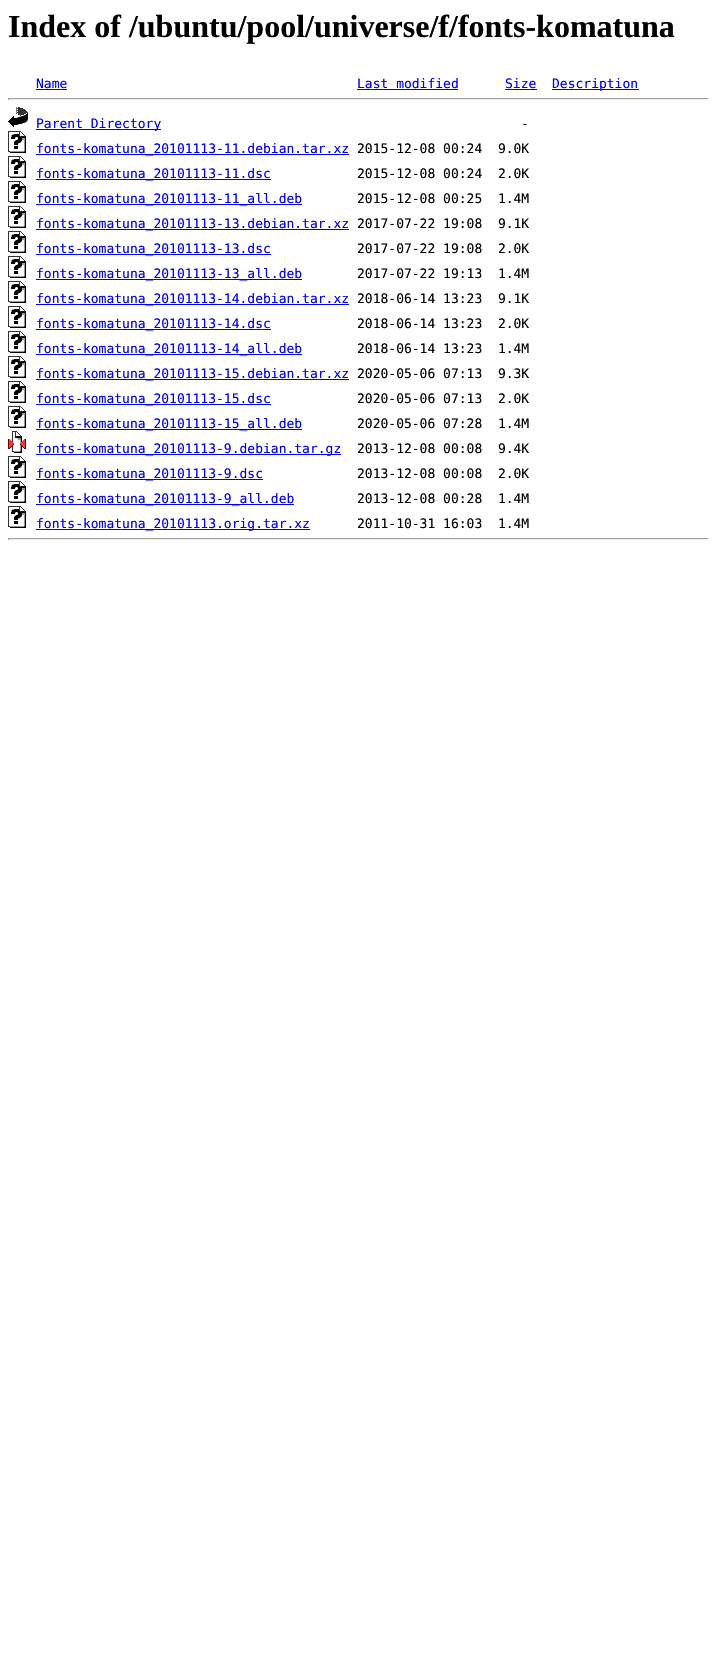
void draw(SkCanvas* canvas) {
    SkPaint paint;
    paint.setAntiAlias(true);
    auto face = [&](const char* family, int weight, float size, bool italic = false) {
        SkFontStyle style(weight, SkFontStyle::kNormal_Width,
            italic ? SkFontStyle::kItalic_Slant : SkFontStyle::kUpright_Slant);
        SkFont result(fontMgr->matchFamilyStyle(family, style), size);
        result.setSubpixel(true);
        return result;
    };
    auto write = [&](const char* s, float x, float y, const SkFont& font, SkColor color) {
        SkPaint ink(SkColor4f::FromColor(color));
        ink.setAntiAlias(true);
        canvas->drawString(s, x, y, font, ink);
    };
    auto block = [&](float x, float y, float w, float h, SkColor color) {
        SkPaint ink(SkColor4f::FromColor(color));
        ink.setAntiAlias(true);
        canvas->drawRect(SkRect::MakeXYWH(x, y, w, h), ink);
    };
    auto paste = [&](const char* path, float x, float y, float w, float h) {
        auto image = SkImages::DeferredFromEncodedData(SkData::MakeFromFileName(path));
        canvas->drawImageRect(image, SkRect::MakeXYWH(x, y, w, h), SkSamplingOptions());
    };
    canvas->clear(SK_ColorWHITE);
    auto kFont1 = face("Liberation Serif", 700, 32);
    write("Index of /ubuntu/pool/universe/f/fonts-komatuna", 8, 37, kFont1, SK_ColorBLACK);
    auto kFont2 = face("DejaVu Sans Mono", 400, 13);
    write("Name", 36, 88, kFont2, SkColorSetRGB(0, 0, 238));
    block(36, 89, 31, 1, SkColorSetRGB(0, 0, 238));
    write("Last modified", 357, 88, kFont2, SkColorSetRGB(0, 0, 238));
    block(357, 89, 101, 1, SkColorSetRGB(0, 0, 238));
    write("Size", 505, 88, kFont2, SkColorSetRGB(0, 0, 238));
    block(505, 89, 32, 1, SkColorSetRGB(0, 0, 238));
    block(552, 89, 87, 1, SkColorSetRGB(0, 0, 238));
    write("Description", 552, 88, kFont2, SkColorSetRGB(0, 0, 238));
    block(8, 98, 701, 1, SkColorSetRGB(159, 159, 159));
    block(708, 98, 1, 2, SkColorSetRGB(238, 238, 238));
    block(8, 99, 701, 1, SkColorSetRGB(238, 238, 238));
    block(8, 98, 1, 2, SkColorSetRGB(159, 159, 159));
    paste("pic1.png", 8, 107, 20, 20);
    block(36, 129, 125, 1, SkColorSetRGB(0, 0, 238));
    write("Parent Directory", 36, 128, kFont2, SkColorSetRGB(0, 0, 238));
    write("-", 521, 128, kFont2, SK_ColorBLACK);
    paste("pic2.png", 8, 131, 18, 22);
    block(36, 154, 313, 1, SkColorSetRGB(0, 0, 238));
    write("fonts-komatuna_20101113-11.debian.tar.xz", 36, 153, kFont2, SkColorSetRGB(0, 0, 238));
    write("2015-12-08 00:24  9.0K", 357, 153, kFont2, SK_ColorBLACK);
    paste("pic2.png", 8, 156, 18, 22);
    block(36, 179, 235, 1, SkColorSetRGB(0, 0, 238));
    write("fonts-komatuna_20101113-11.dsc", 36, 178, kFont2, SkColorSetRGB(0, 0, 238));
    write("2015-12-08 00:24  2.0K", 357, 178, kFont2, SK_ColorBLACK);
    paste("pic2.png", 8, 181, 18, 22);
    block(36, 204, 266, 1, SkColorSetRGB(0, 0, 238));
    write("fonts-komatuna_20101113-11_all.deb", 36, 203, kFont2, SkColorSetRGB(0, 0, 238));
    write("2015-12-08 00:25  1.4M", 357, 203, kFont2, SK_ColorBLACK);
    paste("pic2.png", 8, 206, 18, 22);
    block(36, 229, 313, 1, SkColorSetRGB(0, 0, 238));
    write("fonts-komatuna_20101113-13.debian.tar.xz", 36, 228, kFont2, SkColorSetRGB(0, 0, 238));
    write("2017-07-22 19:08  9.1K", 357, 228, kFont2, SK_ColorBLACK);
    paste("pic2.png", 8, 231, 18, 22);
    block(36, 254, 235, 1, SkColorSetRGB(0, 0, 238));
    write("fonts-komatuna_20101113-13.dsc", 36, 253, kFont2, SkColorSetRGB(0, 0, 238));
    write("2017-07-22 19:08  2.0K", 357, 253, kFont2, SK_ColorBLACK);
    paste("pic2.png", 8, 256, 18, 22);
    block(36, 279, 266, 1, SkColorSetRGB(0, 0, 238));
    write("fonts-komatuna_20101113-13_all.deb", 36, 278, kFont2, SkColorSetRGB(0, 0, 238));
    write("2017-07-22 19:13  1.4M", 357, 278, kFont2, SK_ColorBLACK);
    paste("pic2.png", 8, 281, 18, 22);
    block(36, 304, 313, 1, SkColorSetRGB(0, 0, 238));
    write("fonts-komatuna_20101113-14.debian.tar.xz", 36, 303, kFont2, SkColorSetRGB(0, 0, 238));
    write("2018-06-14 13:23  9.1K", 357, 303, kFont2, SK_ColorBLACK);
    paste("pic2.png", 8, 306, 18, 22);
    block(36, 329, 235, 1, SkColorSetRGB(0, 0, 238));
    write("fonts-komatuna_20101113-14.dsc", 36, 328, kFont2, SkColorSetRGB(0, 0, 238));
    write("2018-06-14 13:23  2.0K", 357, 328, kFont2, SK_ColorBLACK);
    paste("pic2.png", 8, 331, 18, 22);
    block(36, 354, 266, 1, SkColorSetRGB(0, 0, 238));
    write("fonts-komatuna_20101113-14_all.deb", 36, 353, kFont2, SkColorSetRGB(0, 0, 238));
    write("2018-06-14 13:23  1.4M", 357, 353, kFont2, SK_ColorBLACK);
    paste("pic2.png", 8, 356, 18, 22);
    block(36, 379, 313, 1, SkColorSetRGB(0, 0, 238));
    write("fonts-komatuna_20101113-15.debian.tar.xz", 36, 378, kFont2, SkColorSetRGB(0, 0, 238));
    write("2020-05-06 07:13  9.3K", 357, 378, kFont2, SK_ColorBLACK);
    paste("pic2.png", 8, 381, 18, 22);
    block(36, 404, 235, 1, SkColorSetRGB(0, 0, 238));
    write("fonts-komatuna_20101113-15.dsc", 36, 403, kFont2, SkColorSetRGB(0, 0, 238));
    write("2020-05-06 07:13  2.0K", 357, 403, kFont2, SK_ColorBLACK);
    paste("pic2.png", 8, 406, 18, 22);
    block(36, 429, 266, 1, SkColorSetRGB(0, 0, 238));
    write("fonts-komatuna_20101113-15_all.deb", 36, 428, kFont2, SkColorSetRGB(0, 0, 238));
    write("2020-05-06 07:28  1.4M", 357, 428, kFont2, SK_ColorBLACK);
    paste("pic3.png", 8, 431, 18, 22);
    block(36, 454, 305, 1, SkColorSetRGB(0, 0, 238));
    write("fonts-komatuna_20101113-9.debian.tar.gz", 36, 453, kFont2, SkColorSetRGB(0, 0, 238));
    write("2013-12-08 00:08  9.4K", 357, 453, kFont2, SK_ColorBLACK);
    paste("pic2.png", 8, 456, 18, 22);
    block(36, 479, 227, 1, SkColorSetRGB(0, 0, 238));
    write("fonts-komatuna_20101113-9.dsc", 36, 478, kFont2, SkColorSetRGB(0, 0, 238));
    write("2013-12-08 00:08  2.0K", 357, 478, kFont2, SK_ColorBLACK);
    paste("pic2.png", 8, 481, 18, 22);
    block(36, 504, 258, 1, SkColorSetRGB(0, 0, 238));
    write("fonts-komatuna_20101113-9_all.deb", 36, 503, kFont2, SkColorSetRGB(0, 0, 238));
    write("2013-12-08 00:28  1.4M", 357, 503, kFont2, SK_ColorBLACK);
    paste("pic2.png", 8, 506, 18, 22);
    block(36, 529, 274, 1, SkColorSetRGB(0, 0, 238));
    write("fonts-komatuna_20101113.orig.tar.xz", 36, 528, kFont2, SkColorSetRGB(0, 0, 238));
    write("2011-10-31 16:03  1.4M", 357, 528, kFont2, SK_ColorBLACK);
    block(8, 538, 701, 1, SkColorSetRGB(159, 159, 159));
    block(708, 538, 1, 2, SkColorSetRGB(238, 238, 238));
    block(8, 539, 701, 1, SkColorSetRGB(238, 238, 238));
    block(8, 538, 1, 2, SkColorSetRGB(159, 159, 159));
}
